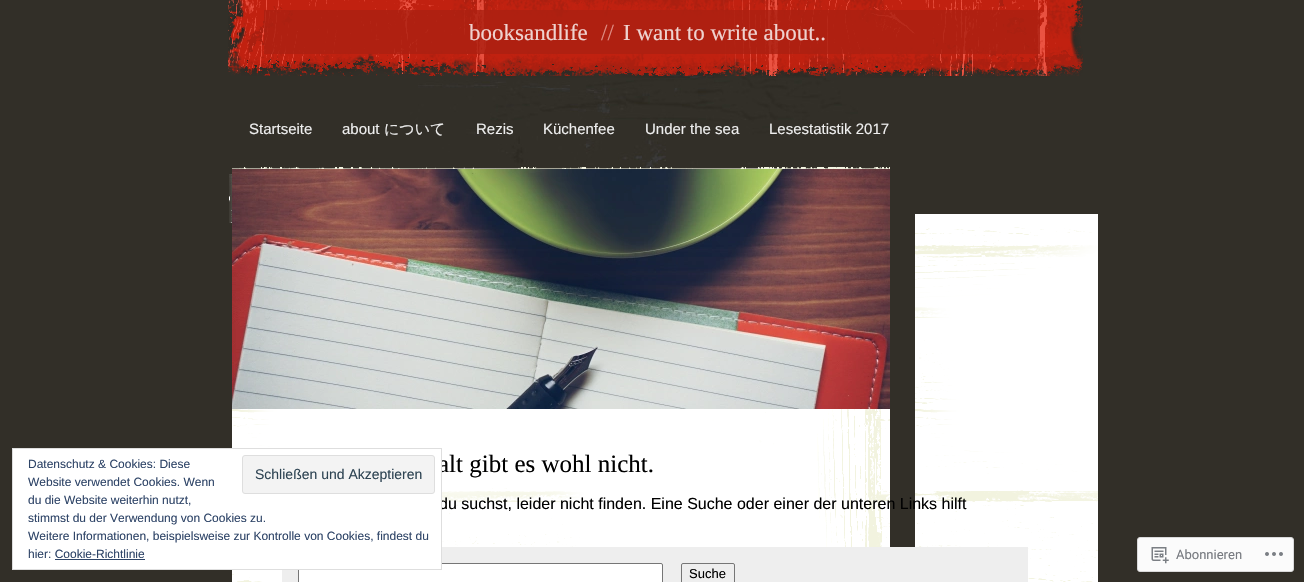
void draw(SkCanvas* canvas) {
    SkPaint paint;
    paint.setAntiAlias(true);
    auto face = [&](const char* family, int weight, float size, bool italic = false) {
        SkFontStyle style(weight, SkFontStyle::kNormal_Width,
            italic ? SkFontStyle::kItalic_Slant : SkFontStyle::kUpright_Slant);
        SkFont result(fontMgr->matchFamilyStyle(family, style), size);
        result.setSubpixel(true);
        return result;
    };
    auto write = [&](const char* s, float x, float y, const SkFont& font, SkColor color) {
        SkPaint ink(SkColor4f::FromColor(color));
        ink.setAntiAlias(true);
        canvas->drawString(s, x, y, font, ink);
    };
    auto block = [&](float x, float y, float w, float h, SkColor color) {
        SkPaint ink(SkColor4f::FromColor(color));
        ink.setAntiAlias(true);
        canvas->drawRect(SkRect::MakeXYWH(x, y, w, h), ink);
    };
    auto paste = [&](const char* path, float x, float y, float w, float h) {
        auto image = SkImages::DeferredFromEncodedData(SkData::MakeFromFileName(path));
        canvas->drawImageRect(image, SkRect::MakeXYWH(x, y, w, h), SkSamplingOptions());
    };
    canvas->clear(SkColorSetRGB(50, 47, 40));
    paste("pic1.png", 402, 55, 472, 114);
    paste("pic3.png", 229, 167, 661, 56);
    paste("pic4.png", 232, 214, 866, 368);
    auto kFont1 = face("Liberation Serif", 400, 25);
    write("alt gibt es wohl nicht.", 438, 472, kFont1, SK_ColorBLACK);
    auto kFont2 = face("Liberation Sans", 400, 16);
    write("du suchst, leider nicht finden. Eine Suche oder einer der unteren Links hilft", 439, 509, kFont2, SK_ColorBLACK);
    block(282, 547, 746, 35, SkColorSetRGB(238, 238, 238));
    paint.setColor(SK_ColorWHITE);
    canvas->drawRoundRect(SkRect::MakeXYWH(298.5f, 563.5f, 364, 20), 1.5f, 1.5f, paint);
    paint.setStyle(SkPaint::kStroke_Style);
    paint.setStrokeWidth(1);
    paint.setColor(SkColorSetRGB(118, 118, 118));
    canvas->drawRoundRect(SkRect::MakeXYWH(298.5f, 563.5f, 364, 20), 1.5f, 1.5f, paint);
    paint.setStyle(SkPaint::kFill_Style);
    paint.setColor(SK_ColorWHITE);
    canvas->drawRect(SkRect::MakeXYWH(12.5f, 448.5f, 429, 121), paint);
    paint.setStyle(SkPaint::kStroke_Style);
    paint.setColor(SkColorSetRGB(222, 222, 222));
    canvas->drawRect(SkRect::MakeXYWH(12.5f, 448.5f, 429, 121), paint);
    auto kFont3 = face("Liberation Sans", 400, 12);
    write("Datenschutz & Cookies: Diese", 28, 468, kFont3, SkColorSetRGB(46, 68, 103));
    write("Website verwendet Cookies. Wenn", 28, 486, kFont3, SkColorSetRGB(46, 68, 103));
    paint.setStyle(SkPaint::kFill_Style);
    paint.setColor(SkColorSetRGB(243, 243, 243));
    canvas->drawRoundRect(SkRect::MakeXYWH(242.5f, 455.5f, 192, 38), 2.5f, 2.5f, paint);
    paint.setStyle(SkPaint::kStroke_Style);
    paint.setColor(SkColorSetRGB(222, 222, 222));
    canvas->drawRoundRect(SkRect::MakeXYWH(242.5f, 455.5f, 192, 38), 2.5f, 2.5f, paint);
    auto kFont4 = face("Liberation Sans", 400, 14);
    write("Schließen und Akzeptieren", 255, 479, kFont4, SkColorSetRGB(46, 68, 83));
    write("du die Website weiterhin nutzt,", 28, 504, kFont3, SkColorSetRGB(46, 68, 103));
    write("stimmst du der Verwendung von Cookies zu.", 28, 522, kFont3, SkColorSetRGB(46, 68, 103));
    write("Weitere Informationen, beispielsweise zur Kontrolle von Cookies, findest du", 28, 540, kFont3, SkColorSetRGB(46, 68, 103));
    write("hier: Cookie-Richtlinie", 28, 558, kFont3, SkColorSetRGB(46, 68, 103));
    block(55, 559, 90, 1, SkColorSetRGB(46, 68, 103));
    paste("pic2.png", 228, 0, 855, 78);
    block(264, 10, 776, 44, SkColorSetARGB(204, 170, 31, 16));
    auto kFont5 = face("Liberation Serif", 400, 23);
    write("booksandlife", 469, 40, kFont5, SkColorSetRGB(239, 210, 207));
    write("//", 601, 40, kFont5, SkColorSetRGB(223, 140, 131));
    write("I want to write about..", 623, 40, kFont5, SkColorSetRGB(239, 210, 207));
    auto kFont6 = face("Liberation Sans", 400, 15);
    write("Startseite", 249, 134, kFont6, SkColorSetRGB(238, 238, 238));
    write("about", 342, 134, kFont6, SkColorSetRGB(238, 238, 238));
    auto kFont7 = face("WenQuanYi Zen Hei", 500, 15);
    write("について", 384, 134, kFont7, SkColorSetRGB(238, 238, 238));
    write("Rezis", 476, 134, kFont6, SkColorSetRGB(238, 238, 238));
    write("Küchenfee", 543, 134, kFont6, SkColorSetRGB(238, 238, 238));
    write("Under the sea", 645, 134, kFont6, SkColorSetRGB(238, 238, 238));
    write("Lesestatistik 2017", 769, 134, kFont6, SkColorSetRGB(238, 238, 238));
    paste("pic5.png", 232, 169, 658, 240);
    paint.setColor(SkColorSetRGB(118, 118, 118));
    canvas->drawRoundRect(SkRect::MakeXYWH(681.5f, 563.5f, 53, 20), 1.5f, 1.5f, paint);
    auto kFont8 = face("Liberation Sans", 400, 13);
    write("Suche", 689, 578, kFont8, SK_ColorBLACK);
    paint.setStyle(SkPaint::kFill_Style);
    paint.setColor(SkColorSetRGB(251, 251, 251));
    canvas->drawRoundRect(SkRect::MakeXYWH(1137.5f, 537.5f, 156, 34), 2.5f, 2.5f, paint);
    paint.setStyle(SkPaint::kStroke_Style);
    paint.setColor(SkColorSetRGB(217, 217, 218));
    canvas->drawRoundRect(SkRect::MakeXYWH(1137.5f, 537.5f, 156, 34), 2.5f, 2.5f, paint);
    paste("pic6.png", 1151, 547, 18, 17);
    auto kFont9 = face("Roboto", 400, 13);
    write("Abonnieren", 1176, 559, kFont9, SkColorSetRGB(119, 122, 128));
    paste("pic7.png", 1265, 552, 18, 4);
}
